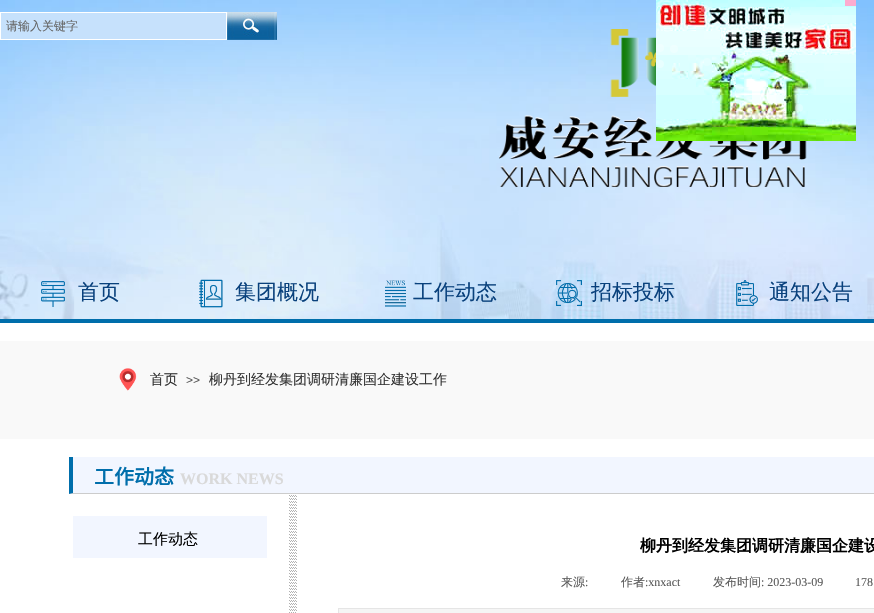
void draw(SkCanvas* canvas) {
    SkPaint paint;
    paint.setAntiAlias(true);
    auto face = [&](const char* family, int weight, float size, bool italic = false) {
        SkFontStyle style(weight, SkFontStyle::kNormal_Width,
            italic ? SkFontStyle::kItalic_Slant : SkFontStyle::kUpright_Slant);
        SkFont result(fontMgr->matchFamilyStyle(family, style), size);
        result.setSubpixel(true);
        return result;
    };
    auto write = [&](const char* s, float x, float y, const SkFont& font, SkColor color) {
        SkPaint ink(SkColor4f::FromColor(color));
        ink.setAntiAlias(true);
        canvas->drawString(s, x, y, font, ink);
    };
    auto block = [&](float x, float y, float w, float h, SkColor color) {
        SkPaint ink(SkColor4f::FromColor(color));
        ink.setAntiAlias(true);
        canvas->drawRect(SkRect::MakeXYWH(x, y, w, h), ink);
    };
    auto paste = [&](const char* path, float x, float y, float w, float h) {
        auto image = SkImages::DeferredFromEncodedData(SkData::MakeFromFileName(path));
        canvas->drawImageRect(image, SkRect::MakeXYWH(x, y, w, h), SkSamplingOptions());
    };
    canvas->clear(SK_ColorWHITE);
    paste("pic3.png", 0, 0, 874, 319);
    paste("pic5.png", 499, 29, 308, 158);
    paste("pic1.png", 656, 0, 200, 141);
    block(845, 0, 11, 6, SkColorSetRGB(252, 171, 207));
    paste("pic2.png", 656, 5, 147, 107);
    paint.setColor(SkColorSetRGB(198, 225, 252));
    canvas->drawRect(SkRect::MakeXYWH(0.5f, 12.5f, 226, 27), paint);
    paint.setStyle(SkPaint::kStroke_Style);
    paint.setStrokeWidth(1);
    paint.setColor(SK_ColorWHITE);
    canvas->drawRect(SkRect::MakeXYWH(0.5f, 12.5f, 226, 27), paint);
    auto kFont1 = face("WenQuanYi Zen Hei", 500, 12);
    write("请输入关键字", 6, 30, kFont1, SkColorSetRGB(102, 102, 102));
    paste("pic4.png", 227, 12, 50, 28);
    paste("pic6.png", 41, 281, 24, 26);
    paste("pic7.png", 199, 279, 24, 29);
    paste("pic8.png", 385, 280, 21, 27);
    paste("pic9.png", 556, 280, 26, 26);
    paste("pic10.png", 736, 280, 22, 26);
    block(0, 319, 874, 4, SkColorSetRGB(0, 110, 171));
    auto kFont2 = face("WenQuanYi Zen Hei", 500, 21);
    write("首页", 78, 299, kFont2, SkColorSetRGB(9, 65, 124));
    write("集团概况", 235, 299, kFont2, SkColorSetRGB(9, 65, 124));
    write("工作动态", 413, 299, kFont2, SkColorSetRGB(9, 65, 124));
    write("招标投标", 591, 299, kFont2, SkColorSetRGB(9, 65, 124));
    write("通知公告", 769, 299, kFont2, SkColorSetRGB(9, 65, 124));
    block(0, 341, 874, 98, SkColorSetRGB(249, 249, 249));
    paste("pic11.png", 119, 368, 18, 23);
    auto kFont3 = face("WenQuanYi Zen Hei", 500, 14);
    write("首页", 150, 384, kFont3, SkColorSetRGB(51, 51, 51));
    auto kFont4 = face("Liberation Sans", 400, 12);
    write(">>", 186, 384, kFont4, SkColorSetRGB(90, 90, 90));
    write("柳丹到经发集团调研清廉国企建设工作", 209, 384, kFont3, SkColorSetRGB(51, 51, 51));
    block(69, 457, 805, 37, SkColorSetRGB(242, 246, 255));
    paint.setStyle(SkPaint::kFill_Style);
    paint.setColor(SkColorSetRGB(204, 204, 204));
    canvas->drawPath(SkPathBuilder().moveTo(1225, 494).lineTo(69, 494).lineTo(73, 493).lineTo(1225, 493).close().detach(), paint);
    paint.setColor(SkColorSetRGB(0, 110, 171));
    canvas->drawPath(SkPathBuilder().moveTo(69, 494).lineTo(69, 457).lineTo(73, 457).lineTo(73, 493).close().detach(), paint);
    auto kFont5 = face("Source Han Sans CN", 700, 20);
    write("工作动态", 94, 484, kFont5, SkColorSetRGB(0, 110, 171));
    auto kFont6 = face("Liberation Serif", 700, 16);
    write("WORK NEWS", 180, 484, kFont6, SkColorSetRGB(217, 217, 217));
    block(73, 516, 194, 42, SkColorSetRGB(242, 246, 255));
    auto kFont7 = face("WenQuanYi Zen Hei", 500, 15);
    write("工作动态", 138, 544, kFont7, SK_ColorBLACK);
    paste("pic12.png", 289, 495, 8, 118);
    auto kFont8 = face("WenQuanYi Zen Hei", 700, 16);
    write("柳丹到经发集团调研清廉国企建设", 640, 551, kFont8, SK_ColorBLACK);
    write("来源", 561, 586, kFont1, SkColorSetRGB(90, 90, 90));
    auto kFont9 = face("Liberation Serif", 400, 12);
    write(":", 585, 586, kFont9, SkColorSetRGB(90, 90, 90));
    write("作者", 621, 586, kFont1, SkColorSetRGB(90, 90, 90));
    write(":xnxact", 645, 586, kFont9, SkColorSetRGB(90, 90, 90));
    write("发布时间", 713, 586, kFont1, SkColorSetRGB(90, 90, 90));
    write(": 2023-03-09", 761, 586, kFont9, SkColorSetRGB(90, 90, 90));
    write("178", 855, 586, kFont9, SkColorSetRGB(90, 90, 90));
    paint.setColor(SkColorSetRGB(245, 245, 245));
    canvas->drawRect(SkRect::MakeXYWH(338.5f, 608.5f, 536, 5), paint);
    paint.setStyle(SkPaint::kStroke_Style);
    paint.setColor(SkColorSetRGB(229, 229, 229));
    canvas->drawRect(SkRect::MakeXYWH(338.5f, 608.5f, 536, 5), paint);
}
